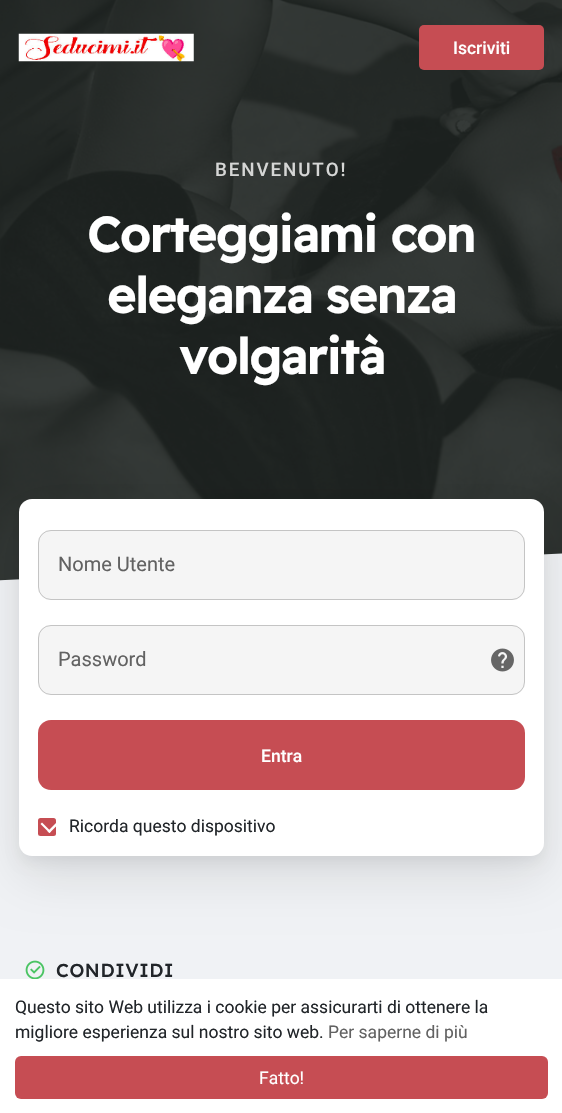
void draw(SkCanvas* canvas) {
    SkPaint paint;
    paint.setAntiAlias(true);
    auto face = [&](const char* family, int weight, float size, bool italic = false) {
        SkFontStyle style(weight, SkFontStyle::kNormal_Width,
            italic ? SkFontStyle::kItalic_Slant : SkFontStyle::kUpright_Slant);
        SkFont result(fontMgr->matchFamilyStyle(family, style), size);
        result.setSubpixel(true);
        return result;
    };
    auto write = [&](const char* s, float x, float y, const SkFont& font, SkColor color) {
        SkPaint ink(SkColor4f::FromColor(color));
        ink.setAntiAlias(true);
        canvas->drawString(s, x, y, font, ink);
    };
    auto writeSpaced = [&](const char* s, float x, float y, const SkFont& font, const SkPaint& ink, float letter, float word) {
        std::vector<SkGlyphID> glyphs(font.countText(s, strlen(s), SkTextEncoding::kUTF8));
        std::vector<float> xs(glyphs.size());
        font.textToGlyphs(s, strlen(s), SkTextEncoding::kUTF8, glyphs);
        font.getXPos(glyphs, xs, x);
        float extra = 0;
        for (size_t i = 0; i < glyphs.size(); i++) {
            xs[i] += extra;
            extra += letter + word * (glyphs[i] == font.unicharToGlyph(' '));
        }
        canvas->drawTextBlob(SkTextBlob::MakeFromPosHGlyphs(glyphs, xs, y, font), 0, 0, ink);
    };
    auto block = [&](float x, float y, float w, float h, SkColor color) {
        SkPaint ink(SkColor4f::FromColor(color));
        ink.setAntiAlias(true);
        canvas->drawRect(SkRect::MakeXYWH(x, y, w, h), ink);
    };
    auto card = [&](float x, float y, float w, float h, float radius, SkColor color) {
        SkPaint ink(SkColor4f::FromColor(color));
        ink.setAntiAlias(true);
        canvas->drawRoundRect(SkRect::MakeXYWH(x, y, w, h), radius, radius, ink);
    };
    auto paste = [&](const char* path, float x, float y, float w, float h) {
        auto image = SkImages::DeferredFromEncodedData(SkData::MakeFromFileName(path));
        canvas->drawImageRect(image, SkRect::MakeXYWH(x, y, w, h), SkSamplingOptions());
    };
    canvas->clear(SkColorSetRGB(240, 242, 245));
    block(0, 0, 562, 581, SkColorSetRGB(30, 35, 33));
    paste("pic1.png", 0, 0, 562, 581);
    paste("pic2.png", 18, 33, 176, 29);
    card(419, 25, 125, 45, 5, SkColorSetRGB(198, 77, 83));
    auto kFont1 = face("Roboto", 500, 17.5f);
    write("Iscriviti", 453, 54, kFont1, SK_ColorWHITE);
    auto kFont2 = face("Roboto", 500, 18.75f);
    paint.setColor(SkColorSetRGB(213, 214, 213));
    writeSpaced("BENVENUTO!", 215, 176, kFont2, paint, 1.9f, 0);
    auto kFont3 = face("Readex Pro", 700, 48.75f);
    paint.setColor(SK_ColorWHITE);
    writeSpaced("Corteggiami con", 87, 252, kFont3, paint, -0.6f, 0);
    writeSpaced("eleganza senza", 107, 313, kFont3, paint, -0.6f, 0);
    writeSpaced("volgarità", 179, 374, kFont3, paint, -0.6f, 0);
    canvas->save();
    canvas->clipRect(SkRect::MakeXYWH(0, 0, 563, 636));
    paint.setColor(SkColorSetRGB(240, 242, 245));
    canvas->drawPath(SkPathBuilder().moveTo(-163, 588).lineTo(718, 546).lineTo(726, 696).lineTo(-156, 737).close().detach(), paint);
    canvas->restore();
    paint.setColor(SkColorSetARGB(26, 0, 0, 0));
    paint.setMaskFilter(SkMaskFilter::MakeBlur(kNormal_SkBlurStyle, 25));
    canvas->drawRoundRect(SkRect::MakeXYWH(19, 518, 525, 357), 13, 13, paint);
    paint.setMaskFilter(nullptr);
    paint.setColor(SkColorSetARGB(13, 0, 0, 0));
    paint.setMaskFilter(SkMaskFilter::MakeBlur(kNormal_SkBlurStyle, 6));
    canvas->drawRoundRect(SkRect::MakeXYWH(19, 505, 525, 358), 13, 13, paint);
    paint.setMaskFilter(nullptr);
    card(19, 499, 525, 357, 13, SK_ColorWHITE);
    card(38, 530, 487, 70, 13, SkColorSetRGB(245, 245, 245));
    paint.setStyle(SkPaint::kStroke_Style);
    paint.setStrokeWidth(1);
    paint.setColor(SkColorSetARGB(51, 0, 0, 0));
    canvas->drawRoundRect(SkRect::MakeXYWH(38.5f, 530.5f, 486, 69), 12.5f, 12.5f, paint);
    auto kFont4 = face("Roboto", 400, 20);
    write("Nome Utente", 58, 571, kFont4, SkColorSetRGB(98, 98, 98));
    card(38, 625, 487, 70, 13, SkColorSetRGB(245, 245, 245));
    canvas->drawRoundRect(SkRect::MakeXYWH(38.5f, 625.5f, 486, 69), 12.5f, 12.5f, paint);
    write("Password", 58, 666, kFont4, SkColorSetRGB(98, 98, 98));
    paste("pic3.png", 491, 648, 23, 24);
    card(38, 720, 487, 70, 13, SkColorSetRGB(198, 77, 83));
    write("Entra", 261, 762, kFont1, SK_ColorWHITE);
    card(38, 818, 18, 18, 2.5f, SkColorSetRGB(198, 77, 83));
    auto kFont5 = face("Roboto", 400, 17.5f);
    write("Ricorda questo dispositivo", 69, 832, kFont5, SkColorSetRGB(33, 37, 41));
    paint.setStyle(SkPaint::kFill_Style);
    paint.setColor(SK_ColorWHITE);
    canvas->drawPath(SkPathBuilder().moveTo(47.5f, 831.5f).lineTo(56.5f, 822.5f).lineTo(58.5f, 824).lineTo(49.5f, 833).close().detach(), paint);
    canvas->drawPath(SkPathBuilder().moveTo(40.5f, 824).lineTo(42, 822.5f).lineTo(51, 831.5f).lineTo(49.5f, 833).close().detach(), paint);
    paste("pic4.png", 25, 960, 20, 19);
    auto kFont6 = face("Readex Pro", 500, 18.75f);
    paint.setColor(SkColorSetRGB(33, 37, 41));
    writeSpaced("CONDIVIDI", 56, 977, kFont6, paint, 0.6f, 0);
    block(0, 979, 562, 134, SK_ColorWHITE);
    write("Questo sito Web utilizza i cookie per assicurarti di ottenere la", 15, 1013, kFont5, SkColorSetRGB(33, 37, 41));
    write("migliore esperienza sul nostro sito web.", 15, 1038, kFont5, SkColorSetRGB(33, 37, 41));
    write("Per saperne di più", 328, 1038, kFont5, SkColorSetRGB(98, 98, 98));
    card(15, 1056, 533, 43, 6, SkColorSetRGB(198, 77, 83));
    write("Fatto!", 259, 1084, kFont5, SK_ColorWHITE);
}
